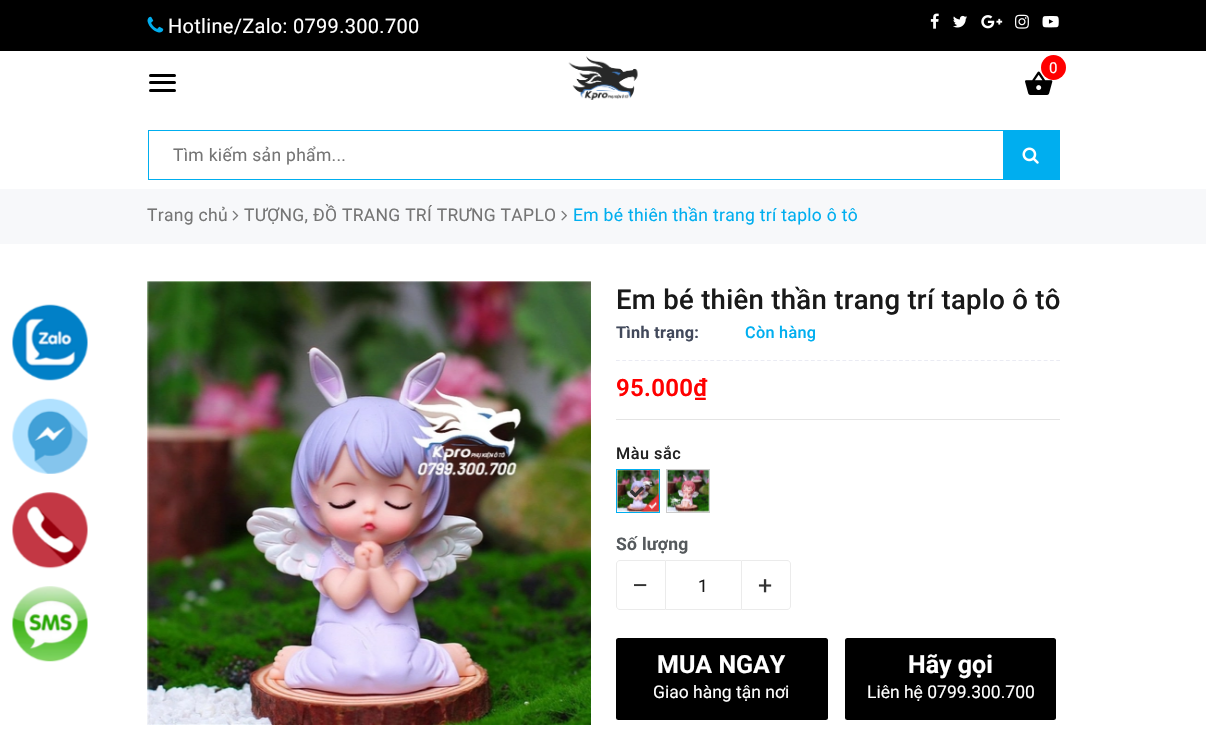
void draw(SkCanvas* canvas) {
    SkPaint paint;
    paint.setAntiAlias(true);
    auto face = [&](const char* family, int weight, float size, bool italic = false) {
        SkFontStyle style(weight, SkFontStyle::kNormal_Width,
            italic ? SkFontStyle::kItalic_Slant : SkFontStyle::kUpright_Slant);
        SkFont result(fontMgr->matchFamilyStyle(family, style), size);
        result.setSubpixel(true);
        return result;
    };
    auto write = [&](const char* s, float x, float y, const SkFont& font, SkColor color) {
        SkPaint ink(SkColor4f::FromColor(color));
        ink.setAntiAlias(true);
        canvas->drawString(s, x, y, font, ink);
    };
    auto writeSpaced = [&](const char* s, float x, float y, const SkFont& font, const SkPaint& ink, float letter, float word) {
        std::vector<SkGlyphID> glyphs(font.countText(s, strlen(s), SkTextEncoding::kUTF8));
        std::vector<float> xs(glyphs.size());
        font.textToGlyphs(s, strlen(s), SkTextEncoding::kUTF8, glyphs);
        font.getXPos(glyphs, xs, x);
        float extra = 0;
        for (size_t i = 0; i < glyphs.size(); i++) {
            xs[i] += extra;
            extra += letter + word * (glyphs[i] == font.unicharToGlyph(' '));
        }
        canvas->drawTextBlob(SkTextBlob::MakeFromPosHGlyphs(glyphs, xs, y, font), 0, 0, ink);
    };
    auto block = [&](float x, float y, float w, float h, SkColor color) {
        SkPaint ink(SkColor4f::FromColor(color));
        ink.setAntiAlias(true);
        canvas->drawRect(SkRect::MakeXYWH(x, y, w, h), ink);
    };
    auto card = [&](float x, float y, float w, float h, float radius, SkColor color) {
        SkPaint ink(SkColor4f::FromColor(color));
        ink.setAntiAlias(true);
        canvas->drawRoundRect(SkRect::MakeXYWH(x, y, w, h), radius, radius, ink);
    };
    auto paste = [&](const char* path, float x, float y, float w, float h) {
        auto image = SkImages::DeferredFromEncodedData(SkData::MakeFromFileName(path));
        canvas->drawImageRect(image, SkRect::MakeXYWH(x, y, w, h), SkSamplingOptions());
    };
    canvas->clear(SK_ColorWHITE);
    block(0, 0, 1206, 51, SK_ColorBLACK);
    paste("pic1.png", 147, 16, 17, 17);
    auto kFont1 = face("Roboto", 400, 20);
    paint.setColor(SK_ColorWHITE);
    writeSpaced("Hotline/Zalo: 0799.300.700", 168, 33, kFont1, paint, 0.3f, 0);
    paste("pic2.png", 930, 13, 9, 16);
    paste("pic3.png", 953, 15, 14, 13);
    paste("pic4.png", 981, 15, 22, 14);
    paste("pic5.png", 1015, 14, 14, 15);
    paste("pic6.png", 1042, 16, 17, 12);
    paste("pic7.png", 568, 56, 70, 44);
    paste("pic8.png", 1025, 71, 28, 24);
    paint.setColor(SkColorSetRGB(255, 0, 0));
    canvas->drawCircle(1053.5f, 67.5f, 12.5f, paint);
    auto kFont2 = face("Roboto", 400, 15);
    paint.setColor(SK_ColorWHITE);
    writeSpaced("0", 1049, 73, kFont2, paint, 0.3f, 0);
    card(149, 74, 27, 3, 1.5f, SK_ColorBLACK);
    card(149, 81, 27, 3, 1.5f, SK_ColorBLACK);
    card(149, 89, 27, 3, 1.5f, SK_ColorBLACK);
    paint.setStyle(SkPaint::kStroke_Style);
    paint.setStrokeWidth(1);
    paint.setColor(SkColorSetRGB(0, 174, 239));
    canvas->drawRect(SkRect::MakeXYWH(148.5f, 130.5f, 911, 49), paint);
    auto kFont3 = face("Roboto", 400, 17.5f);
    paint.setStyle(SkPaint::kFill_Style);
    paint.setColor(SkColorSetRGB(117, 117, 117));
    writeSpaced("Tìm kiếm sản phẩm...", 173, 161, kFont3, paint, 0.3f, 0);
    block(1003, 131, 56, 48, SkColorSetRGB(0, 174, 239));
    paste("pic9.png", 1022, 147, 17, 17);
    block(0, 189, 1206, 55, SkColorSetRGB(247, 248, 250));
    writeSpaced("Trang chủ", 147, 221, kFont3, paint, 0.3f, 0);
    paste("pic10.png", 232, 210, 7, 11);
    writeSpaced("TƯỢNG, ĐỒ TRANG TRÍ TRƯNG TAPLO", 244, 221, kFont3, paint, 0.3f, 0);
    paste("pic11.png", 561, 210, 6, 11);
    paint.setColor(SkColorSetRGB(0, 174, 239));
    writeSpaced("Em bé thiên thần trang trí taplo ô tô", 573, 221, kFont3, paint, 0.3f, 0);
    paste("pic12.png", 12, 304, 76, 77);
    paste("pic13.png", 12, 398, 76, 76);
    paste("pic14.png", 12, 492, 76, 77);
    paste("pic15.png", 12, 586, 76, 76);
    paste("pic16.png", 147, 281, 444, 444);
    auto kFont4 = face("Roboto", 500, 27.5f);
    paint.setColor(SkColorSetRGB(25, 25, 25));
    writeSpaced("Em bé thiên thần trang trí taplo ô tô", 616, 309, kFont4, paint, 0.3f, 0);
    paint.setStyle(SkPaint::kStroke_Style);
    paint.setStrokeWidth(1.2f);
    paint.setColor(SkColorSetRGB(234, 235, 243));
    paint.setPathEffect(SkDashPathEffect::Make({{3.75f, 2.54f}}, 0));
    canvas->drawPath(SkPathBuilder().moveTo(616, 360.5f).lineTo(1060, 360.5f).detach(), paint);
    paint.setPathEffect(nullptr);
    auto kFont5 = face("Roboto", 700, 16.25f);
    paint.setStyle(SkPaint::kFill_Style);
    paint.setColor(SkColorSetRGB(66, 73, 91));
    writeSpaced("Tình trạng:", 616, 338, kFont5, paint, 0.3f, 0);
    auto kFont6 = face("Roboto", 500, 16.25f);
    paint.setColor(SkColorSetRGB(0, 174, 239));
    writeSpaced("Còn hàng", 745, 338, kFont6, paint, 0.3f, 0);
    block(616, 419, 444, 1, SkColorSetRGB(228, 228, 228));
    auto kFont7 = face("Roboto", 600, 24);
    paint.setColor(SkColorSetRGB(255, 0, 0));
    writeSpaced("95.000₫", 616, 396, kFont7, paint, 0.3f, 0);
    paint.setColor(SkColorSetRGB(34, 34, 34));
    writeSpaced("Màu sắc", 616, 459, kFont6, paint, 0.5f, 0);
    paste("pic17.png", 617, 470, 42, 42);
    paint.setStyle(SkPaint::kStroke_Style);
    paint.setStrokeWidth(1);
    paint.setColor(SkColorSetRGB(0, 174, 239));
    canvas->drawRect(SkRect::MakeXYWH(616.5f, 469.5f, 43, 43), paint);
    paste("pic18.png", 629, 486, 15, 12);
    paste("pic19.png", 641, 493, 18, 19);
    paste("pic20.png", 667, 470, 42, 42);
    paint.setColor(SkColorSetRGB(204, 204, 204));
    canvas->drawRect(SkRect::MakeXYWH(666.5f, 469.5f, 43, 43), paint);
    auto kFont8 = face("Roboto", 700, 17.5f);
    paint.setStyle(SkPaint::kFill_Style);
    paint.setColor(SkColorSetRGB(85, 89, 92));
    writeSpaced("Số lượng", 616, 550, kFont8, paint, 0.3f, 0);
    paint.setStyle(SkPaint::kStroke_Style);
    paint.setColor(SkColorSetRGB(235, 235, 235));
    canvas->drawPath(SkPathBuilder().moveTo(620, 560.5f).lineTo(665.5f, 560.5f).lineTo(665.5f, 609.5f).lineTo(620, 609.5f).cubicTo(618, 609.5f, 616.5f, 608, 616.5f, 606).lineTo(616.5f, 564).cubicTo(616.5f, 562, 618, 560.5f, 620, 560.5f).close().detach(), paint);
    auto kFont9 = face("Roboto", 400, 25);
    paint.setStyle(SkPaint::kFill_Style);
    paint.setColor(SkColorSetRGB(51, 51, 51));
    writeSpaced("–", 632, 594, kFont9, paint, 0.3f, 0);
    block(666, 560, 75, 1, SkColorSetRGB(235, 235, 235));
    block(666, 609, 75, 1, SkColorSetRGB(235, 235, 235));
    paint.setColor(SkColorSetRGB(25, 25, 25));
    writeSpaced("1", 698, 592, kFont3, paint, 0.3f, 0);
    paint.setStyle(SkPaint::kStroke_Style);
    paint.setColor(SkColorSetRGB(235, 235, 235));
    canvas->drawPath(SkPathBuilder().moveTo(741.5f, 560.5f).lineTo(787, 560.5f).cubicTo(789, 560.5f, 790.5f, 562, 790.5f, 564).lineTo(790.5f, 606).cubicTo(790.5f, 608, 789, 609.5f, 787, 609.5f).lineTo(741.5f, 609.5f).close().detach(), paint);
    paint.setStyle(SkPaint::kFill_Style);
    paint.setColor(SkColorSetRGB(51, 51, 51));
    writeSpaced("+", 758, 594, kFont9, paint, 0.3f, 0);
    card(616, 638, 212, 82, 2.5f, SK_ColorBLACK);
    auto kFont10 = face("Roboto", 700, 25);
    write("MUA NGAY", 657, 673, kFont10, SK_ColorWHITE);
    write("Giao hàng tận nơi", 653, 698, kFont3, SK_ColorWHITE);
    card(845, 638, 211, 82, 2.5f, SK_ColorBLACK);
    write("Hãy gọi", 908, 673, kFont10, SK_ColorWHITE);
    write("Liên hệ 0799.300.700", 867, 698, kFont3, SK_ColorWHITE);
}
